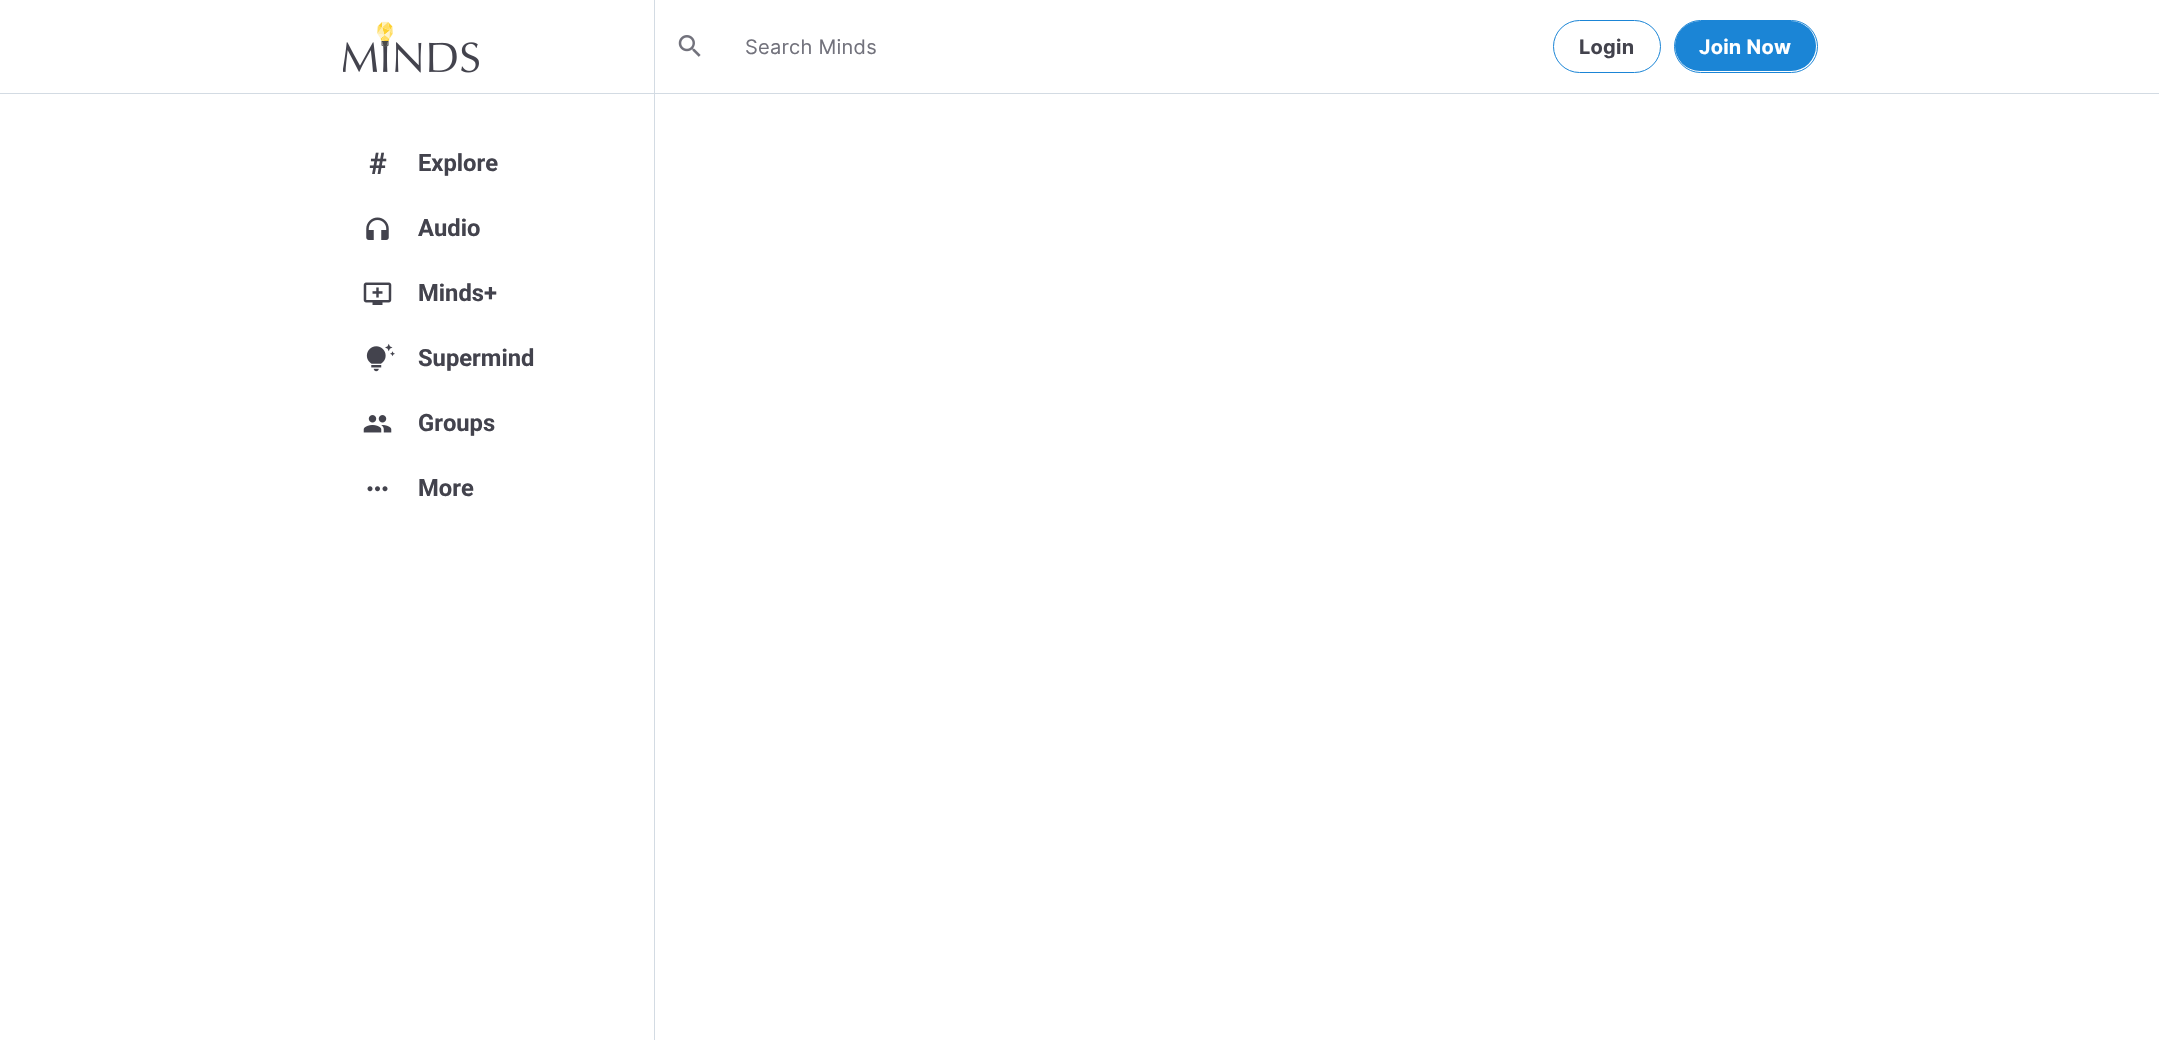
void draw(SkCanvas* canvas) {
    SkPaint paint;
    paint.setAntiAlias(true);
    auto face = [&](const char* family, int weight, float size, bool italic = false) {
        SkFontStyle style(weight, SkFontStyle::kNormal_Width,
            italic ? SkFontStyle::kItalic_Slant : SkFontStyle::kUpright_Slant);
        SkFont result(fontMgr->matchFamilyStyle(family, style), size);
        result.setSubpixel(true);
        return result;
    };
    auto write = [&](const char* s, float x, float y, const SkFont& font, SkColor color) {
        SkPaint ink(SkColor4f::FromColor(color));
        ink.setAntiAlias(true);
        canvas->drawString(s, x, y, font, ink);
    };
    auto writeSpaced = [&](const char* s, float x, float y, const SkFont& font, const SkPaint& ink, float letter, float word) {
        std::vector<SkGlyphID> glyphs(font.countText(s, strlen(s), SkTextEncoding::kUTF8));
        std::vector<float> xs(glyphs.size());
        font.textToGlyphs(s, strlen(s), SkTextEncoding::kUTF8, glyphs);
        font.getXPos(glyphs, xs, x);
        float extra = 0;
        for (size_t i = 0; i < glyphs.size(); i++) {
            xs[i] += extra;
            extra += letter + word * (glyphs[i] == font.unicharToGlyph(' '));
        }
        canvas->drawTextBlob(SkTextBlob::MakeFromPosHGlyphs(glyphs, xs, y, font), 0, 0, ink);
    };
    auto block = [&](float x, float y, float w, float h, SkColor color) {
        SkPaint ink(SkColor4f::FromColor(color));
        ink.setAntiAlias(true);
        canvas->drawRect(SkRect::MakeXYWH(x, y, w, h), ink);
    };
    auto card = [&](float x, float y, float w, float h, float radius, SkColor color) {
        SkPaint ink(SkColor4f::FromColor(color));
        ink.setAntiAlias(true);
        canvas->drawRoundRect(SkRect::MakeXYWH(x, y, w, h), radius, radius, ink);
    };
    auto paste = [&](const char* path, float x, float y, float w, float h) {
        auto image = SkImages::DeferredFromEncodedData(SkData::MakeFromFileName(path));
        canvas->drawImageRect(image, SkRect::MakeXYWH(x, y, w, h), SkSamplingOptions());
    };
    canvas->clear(SK_ColorWHITE);
    block(0, 93, 2159, 1, SkColorSetRGB(211, 219, 227));
    block(654, 0, 1, 93, SkColorSetRGB(211, 219, 227));
    paste("pic1.png", 343, 21, 136, 52);
    paste("pic2.png", 678, 35, 23, 22);
    auto kFont1 = face("Inter", 400, 20);
    paint.setColor(SkColorSetRGB(114, 114, 124));
    writeSpaced("Search Minds", 745, 54, kFont1, paint, 0.25f, 0);
    paint.setStyle(SkPaint::kStroke_Style);
    paint.setStrokeWidth(1);
    paint.setColor(SkColorSetRGB(27, 133, 214));
    canvas->drawRoundRect(SkRect::MakeXYWH(1553.5f, 20.5f, 107, 52), 26, 26, paint);
    auto kFont2 = face("Inter", 700, 20);
    paint.setStyle(SkPaint::kFill_Style);
    paint.setColor(SkColorSetRGB(67, 67, 77));
    writeSpaced("Login", 1579, 54, kFont2, paint, 0.25f, 0);
    card(1675, 21, 141, 50, 25, SkColorSetRGB(27, 133, 214));
    paint.setStyle(SkPaint::kStroke_Style);
    paint.setColor(SkColorSetRGB(27, 133, 214));
    canvas->drawRoundRect(SkRect::MakeXYWH(1674.5f, 20.5f, 143, 52), 26, 26, paint);
    paint.setStyle(SkPaint::kFill_Style);
    paint.setColor(SK_ColorWHITE);
    writeSpaced("Join Now", 1699, 54, kFont2, paint, 0.25f, 0);
    block(654, 94, 1, 946, SkColorSetRGB(211, 219, 227));
    auto kFont3 = face("Roboto", 700, 30);
    write("#", 369, 174, kFont3, SkColorSetRGB(67, 67, 77));
    auto kFont4 = face("Roboto", 700, 23.75f);
    write("Explore", 418, 171, kFont4, SkColorSetRGB(67, 67, 77));
    paste("pic3.png", 366, 217, 23, 23);
    write("Audio", 418, 236, kFont4, SkColorSetRGB(67, 67, 77));
    paste("pic4.png", 363, 282, 29, 23);
    write("Minds+", 418, 301, kFont4, SkColorSetRGB(67, 67, 77));
    paste("pic5.png", 366, 343, 29, 29);
    write("Supermind", 418, 366, kFont4, SkColorSetRGB(67, 67, 77));
    paste("pic6.png", 363, 415, 29, 18);
    write("Groups", 418, 431, kFont4, SkColorSetRGB(67, 67, 77));
    paste("pic7.png", 367, 486, 21, 6);
    write("More", 418, 496, kFont4, SkColorSetRGB(67, 67, 77));
}
